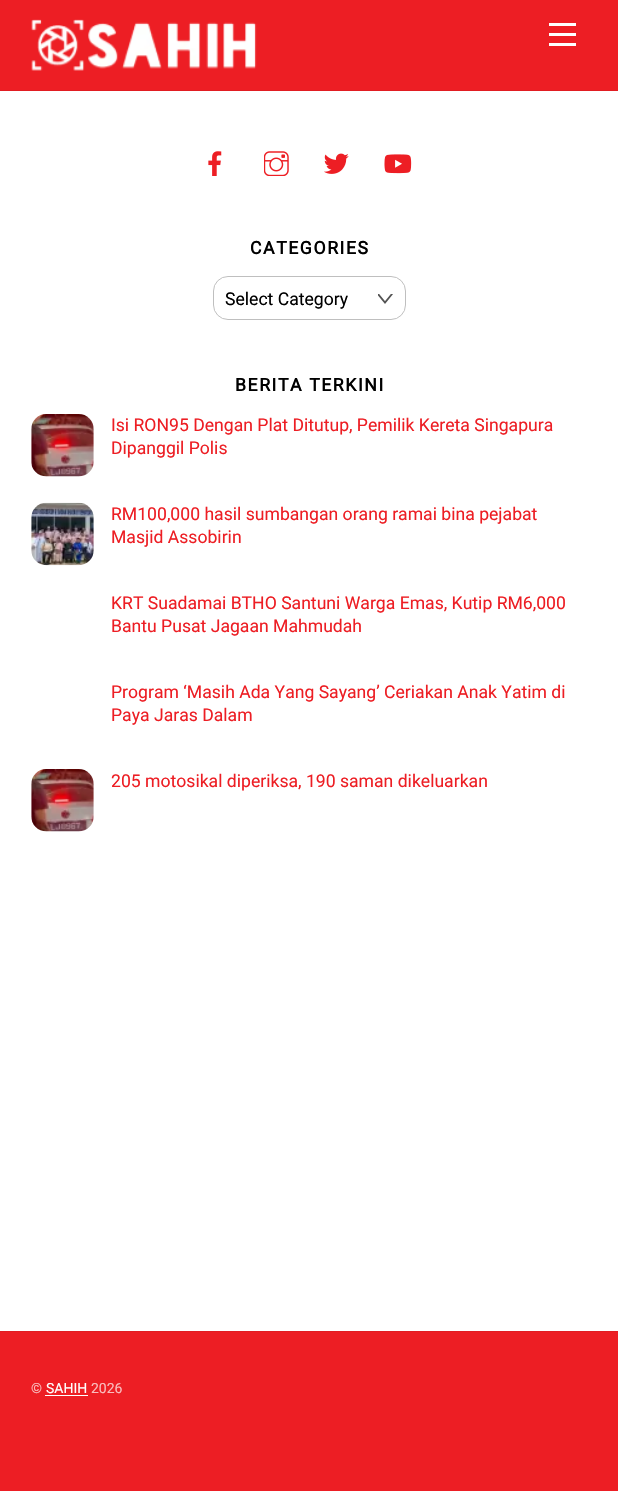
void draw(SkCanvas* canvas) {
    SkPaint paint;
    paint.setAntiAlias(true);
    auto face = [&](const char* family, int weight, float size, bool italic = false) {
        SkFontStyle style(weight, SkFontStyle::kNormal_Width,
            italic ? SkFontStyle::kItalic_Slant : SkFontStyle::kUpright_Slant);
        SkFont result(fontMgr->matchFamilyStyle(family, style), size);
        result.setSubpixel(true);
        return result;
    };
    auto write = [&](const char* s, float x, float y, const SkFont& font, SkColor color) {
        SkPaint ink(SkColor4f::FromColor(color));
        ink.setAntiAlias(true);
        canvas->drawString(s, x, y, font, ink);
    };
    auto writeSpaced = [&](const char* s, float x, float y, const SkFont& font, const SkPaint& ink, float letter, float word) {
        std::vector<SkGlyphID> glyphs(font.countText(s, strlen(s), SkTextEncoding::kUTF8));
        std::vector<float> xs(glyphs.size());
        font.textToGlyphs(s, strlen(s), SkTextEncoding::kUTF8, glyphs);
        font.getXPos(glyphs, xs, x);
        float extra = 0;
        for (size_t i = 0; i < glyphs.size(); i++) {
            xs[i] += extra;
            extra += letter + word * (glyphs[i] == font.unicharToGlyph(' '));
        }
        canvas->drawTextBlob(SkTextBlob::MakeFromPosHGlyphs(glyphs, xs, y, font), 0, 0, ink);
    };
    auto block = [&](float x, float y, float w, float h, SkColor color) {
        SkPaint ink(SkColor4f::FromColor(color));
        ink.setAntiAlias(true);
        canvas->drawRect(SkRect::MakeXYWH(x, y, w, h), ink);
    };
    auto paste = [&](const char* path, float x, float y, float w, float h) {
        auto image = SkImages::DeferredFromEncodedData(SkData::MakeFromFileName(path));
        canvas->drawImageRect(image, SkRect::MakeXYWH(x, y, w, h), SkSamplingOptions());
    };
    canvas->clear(SK_ColorWHITE);
    block(0, 0, 618, 90, SkColorSetRGB(237, 30, 36));
    block(0, 90, 618, 1, SkColorSetRGB(225, 29, 34));
    paste("pic1.png", 31, 19, 226, 52);
    block(549, 43, 27, 3, SK_ColorWHITE);
    block(549, 23, 27, 3, SK_ColorWHITE);
    block(549, 33, 27, 3, SK_ColorWHITE);
    paste("pic2.png", 208, 151, 14, 25);
    paste("pic3.png", 264, 151, 25, 25);
    paste("pic4.png", 324, 153, 25, 21);
    paste("pic5.png", 384, 154, 28, 20);
    auto kFont1 = face("Roboto", 700, 17.6f);
    paint.setColor(SK_ColorBLACK);
    writeSpaced("CATEGORIES", 250, 254, kFont1, paint, 1.6f, 0);
    canvas->save();
    canvas->clipRect(SkRect::MakeXYWH(378, 294, 15, 15));
    paint.setStyle(SkPaint::kStroke_Style);
    paint.setStrokeWidth(1.8f);
    paint.setStrokeCap(SkPaint::kRound_Cap);
    paint.setColor(SkColorSetRGB(83, 83, 83));
    canvas->drawPath(SkPathBuilder().moveTo(378, 294).lineTo(385, 302.5f).lineTo(392, 294).detach(), paint);
    canvas->restore();
    paint.setStrokeWidth(1);
    paint.setStrokeCap(SkPaint::kButt_Cap);
    paint.setColor(SkColorSetRGB(191, 191, 191));
    canvas->drawRoundRect(SkRect::MakeXYWH(213.5f, 276.5f, 192, 43), 14.5f, 14.5f, paint);
    auto kFont2 = face("Roboto", 400, 17.6f);
    write("Select Category", 225, 305, kFont2, SK_ColorBLACK);
    paint.setStyle(SkPaint::kFill_Style);
    paint.setColor(SK_ColorBLACK);
    writeSpaced("BERITA TERKINI", 235, 391, kFont1, paint, 1.6f, 0);
    paste("pic6.png", 31, 414, 63, 63);
    write("Isi RON95 Dengan Plat Ditutup, Pemilik Kereta Singapura", 111, 431, kFont2, SkColorSetRGB(237, 30, 36));
    write("Dipanggil Polis", 111, 454, kFont2, SkColorSetRGB(237, 30, 36));
    paste("pic7.png", 31, 502, 63, 64);
    write("RM100,000 hasil sumbangan orang ramai bina pejabat", 111, 520, kFont2, SkColorSetRGB(237, 30, 36));
    write("Masjid Assobirin", 111, 543, kFont2, SkColorSetRGB(237, 30, 36));
    write("KRT Suadamai BTHO Santuni Warga Emas, Kutip RM6,000", 111, 609, kFont2, SkColorSetRGB(237, 30, 36));
    write("Bantu Pusat Jagaan Mahmudah", 111, 632, kFont2, SkColorSetRGB(237, 30, 36));
    write("Program ‘Masih Ada Yang Sayang’ Ceriakan Anak Yatim di", 111, 698, kFont2, SkColorSetRGB(237, 30, 36));
    write("Paya Jaras Dalam", 111, 721, kFont2, SkColorSetRGB(237, 30, 36));
    paste("pic8.png", 31, 769, 63, 63);
    write("205 motosikal diperiksa, 190 saman dikeluarkan", 111, 787, kFont2, SkColorSetRGB(237, 30, 36));
    block(0, 1332, 618, 159, SkColorSetRGB(237, 30, 36));
    block(0, 1331, 618, 1, SkColorSetRGB(225, 29, 34));
    auto kFont3 = face("Roboto", 400, 14);
    write("©", 31, 1393, kFont3, SkColorSetRGB(250, 188, 189));
    write("SAHIH", 46, 1393, kFont3, SK_ColorWHITE);
    block(45, 1395, 43, 1, SK_ColorWHITE);
    write("2026", 91, 1393, kFont3, SkColorSetRGB(250, 188, 189));
}
